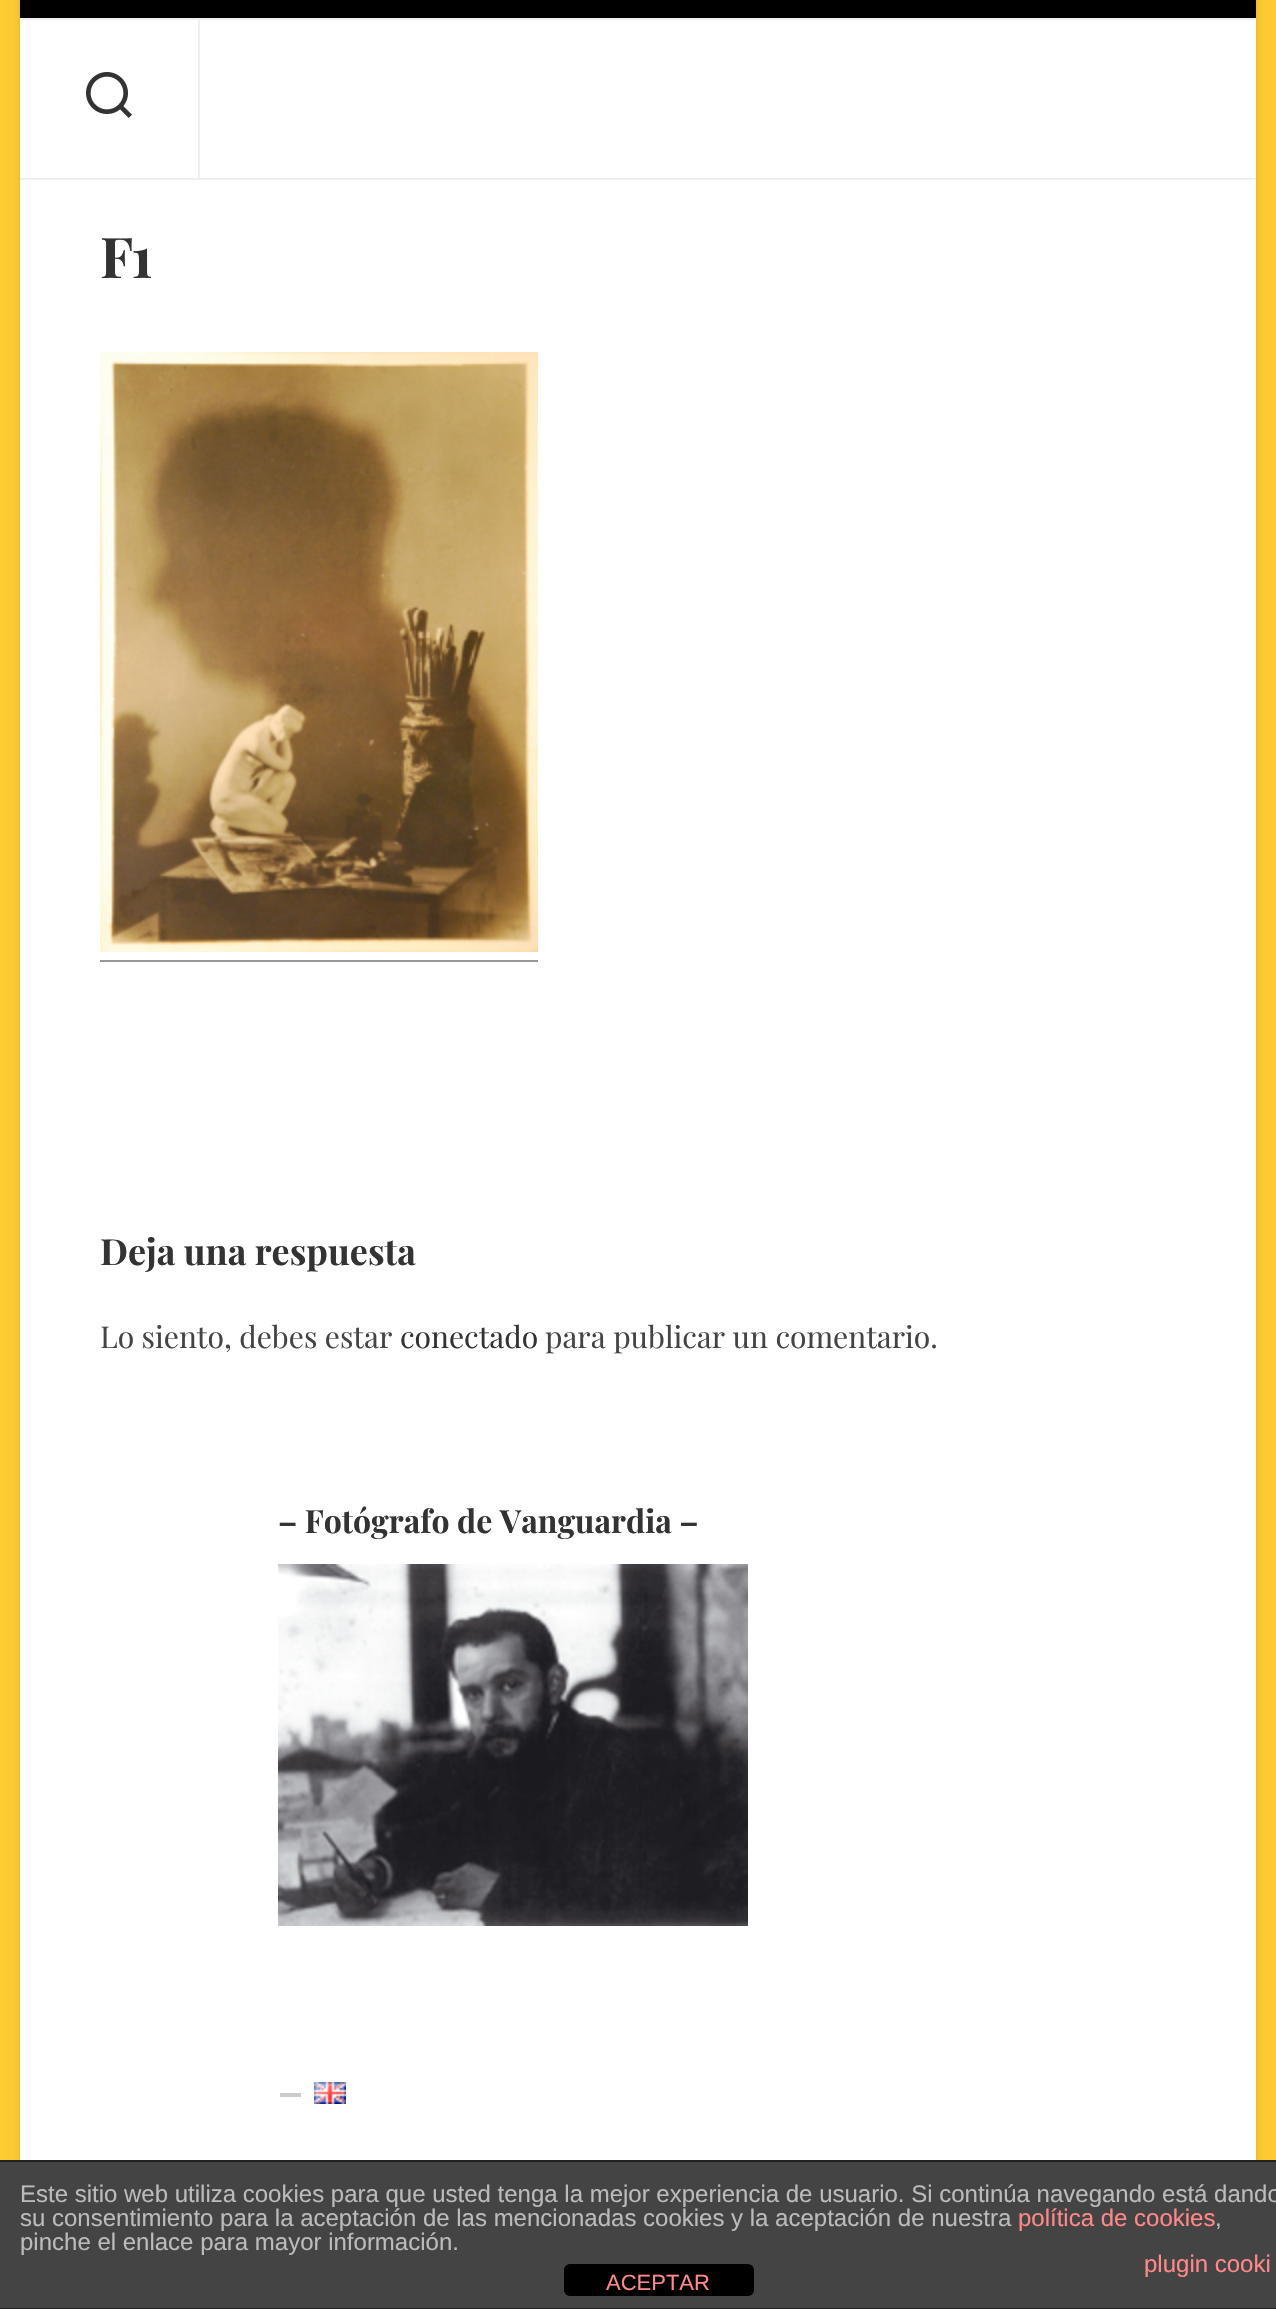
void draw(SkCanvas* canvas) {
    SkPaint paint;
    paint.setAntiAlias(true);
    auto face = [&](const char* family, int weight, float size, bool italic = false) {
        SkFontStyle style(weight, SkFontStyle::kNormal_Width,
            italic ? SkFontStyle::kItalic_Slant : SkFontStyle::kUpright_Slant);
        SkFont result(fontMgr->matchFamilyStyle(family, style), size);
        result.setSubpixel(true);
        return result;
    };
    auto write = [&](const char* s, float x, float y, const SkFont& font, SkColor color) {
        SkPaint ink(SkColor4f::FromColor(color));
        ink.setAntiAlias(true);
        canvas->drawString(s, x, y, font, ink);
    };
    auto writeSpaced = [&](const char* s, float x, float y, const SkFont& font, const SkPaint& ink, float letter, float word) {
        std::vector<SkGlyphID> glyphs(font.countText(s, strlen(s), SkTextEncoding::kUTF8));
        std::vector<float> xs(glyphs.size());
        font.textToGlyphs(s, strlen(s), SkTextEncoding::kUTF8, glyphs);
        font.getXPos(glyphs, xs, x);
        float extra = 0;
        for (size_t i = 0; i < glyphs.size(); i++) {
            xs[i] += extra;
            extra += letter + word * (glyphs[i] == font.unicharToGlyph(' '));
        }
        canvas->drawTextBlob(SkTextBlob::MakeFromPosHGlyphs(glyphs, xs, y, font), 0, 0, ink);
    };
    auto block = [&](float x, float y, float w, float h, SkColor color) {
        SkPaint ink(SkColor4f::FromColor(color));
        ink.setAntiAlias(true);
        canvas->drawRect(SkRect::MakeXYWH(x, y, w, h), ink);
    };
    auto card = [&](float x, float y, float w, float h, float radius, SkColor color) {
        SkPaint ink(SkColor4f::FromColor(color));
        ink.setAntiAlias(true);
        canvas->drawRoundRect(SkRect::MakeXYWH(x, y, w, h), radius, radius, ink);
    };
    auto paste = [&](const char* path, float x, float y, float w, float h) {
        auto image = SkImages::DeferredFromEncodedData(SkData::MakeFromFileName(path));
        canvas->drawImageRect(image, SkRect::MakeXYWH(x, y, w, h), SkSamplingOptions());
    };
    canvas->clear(SkColorSetRGB(255, 204, 51));
    paint.setColor(SkColorSetARGB(26, 0, 0, 0));
    paint.setMaskFilter(SkMaskFilter::MakeBlur(kNormal_SkBlurStyle, 2));
    canvas->drawRect(SkRect::MakeXYWH(20, -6, 1236, 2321), paint);
    paint.setMaskFilter(nullptr);
    paint.setColor(SkColorSetARGB(13, 0, 0, 0));
    paint.setMaskFilter(SkMaskFilter::MakeBlur(kNormal_SkBlurStyle, 10));
    canvas->drawRect(SkRect::MakeXYWH(20, -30, 1236, 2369), paint);
    paint.setMaskFilter(nullptr);
    block(20, 20, 1236, 2140, SK_ColorWHITE);
    block(20, 0, 1236, 18, SK_ColorBLACK);
    block(20, 18, 1236, 2, SkColorSetRGB(238, 238, 238));
    block(20, 178, 1236, 2, SkColorSetRGB(238, 238, 238));
    block(198, 20, 2, 158, SkColorSetRGB(238, 238, 238));
    paste("pic1.png", 86, 72, 46, 46);
    auto kFont1 = face("Playfair Display", 700, 56);
    paint.setColor(SkColorSetRGB(51, 51, 51));
    writeSpaced("F1", 100, 278, kFont1, paint, -2, 0);
    paste("pic2.png", 100, 352, 438, 600);
    block(100, 960, 438, 2, SkColorSetRGB(153, 153, 153));
    auto kFont2 = face("Playfair Display", 700, 36);
    write("Deja una respuesta", 100, 1265, kFont2, SkColorSetRGB(51, 51, 51));
    auto kFont3 = face("Playfair Display", 400, 30);
    write("Lo siento, debes estar", 100, 1348, kFont3, SkColorSetRGB(68, 68, 68));
    write("conectado", 400, 1348, kFont3, SkColorSetRGB(51, 51, 51));
    write("para publicar un comentario.", 545, 1348, kFont3, SkColorSetRGB(68, 68, 68));
    auto kFont4 = face("Playfair Display", 700, 32);
    write("– Fotógrafo de Vanguardia –", 278, 1533, kFont4, SkColorSetRGB(51, 51, 51));
    paste("pic3.png", 278, 1564, 470, 362);
    block(280, 2093, 21, 4, SkColorSetRGB(204, 204, 204));
    paste("pic4.png", 314, 2082, 32, 22);
    block(0, 2162, 1276, 146, SkColorSetRGB(68, 68, 68));
    block(0, 2160, 1276, 2, SkColorSetRGB(34, 34, 34));
    block(0, 2308, 1276, 1, SkColorSetRGB(34, 34, 34));
    auto kFont5 = face("Liberation Sans", 400, 24);
    write("Este sitio web utiliza cookies para que usted tenga la mejor experiencia de usuario. Si continúa navegando está dando", 20, 2202, kFont5, SkColorSetRGB(187, 187, 187));
    write("su consentimiento para la aceptación de las mencionadas cookies y la aceptación de nuestra", 20, 2226, kFont5, SkColorSetRGB(187, 187, 187));
    write("política de cookies", 1018, 2226, kFont5, SkColorSetRGB(255, 136, 136));
    write(",", 1215, 2226, kFont5, SkColorSetRGB(187, 187, 187));
    write("pinche el enlace para mayor información.", 20, 2250, kFont5, SkColorSetRGB(187, 187, 187));
    write("plugin cooki", 1144, 2272, kFont5, SkColorSetRGB(255, 136, 136));
    card(564, 2264, 190, 32, 6, SK_ColorBLACK);
    auto kFont6 = face("Liberation Sans", 400, 22);
    write("ACEPTAR", 606, 2290, kFont6, SkColorSetRGB(255, 136, 136));
}
